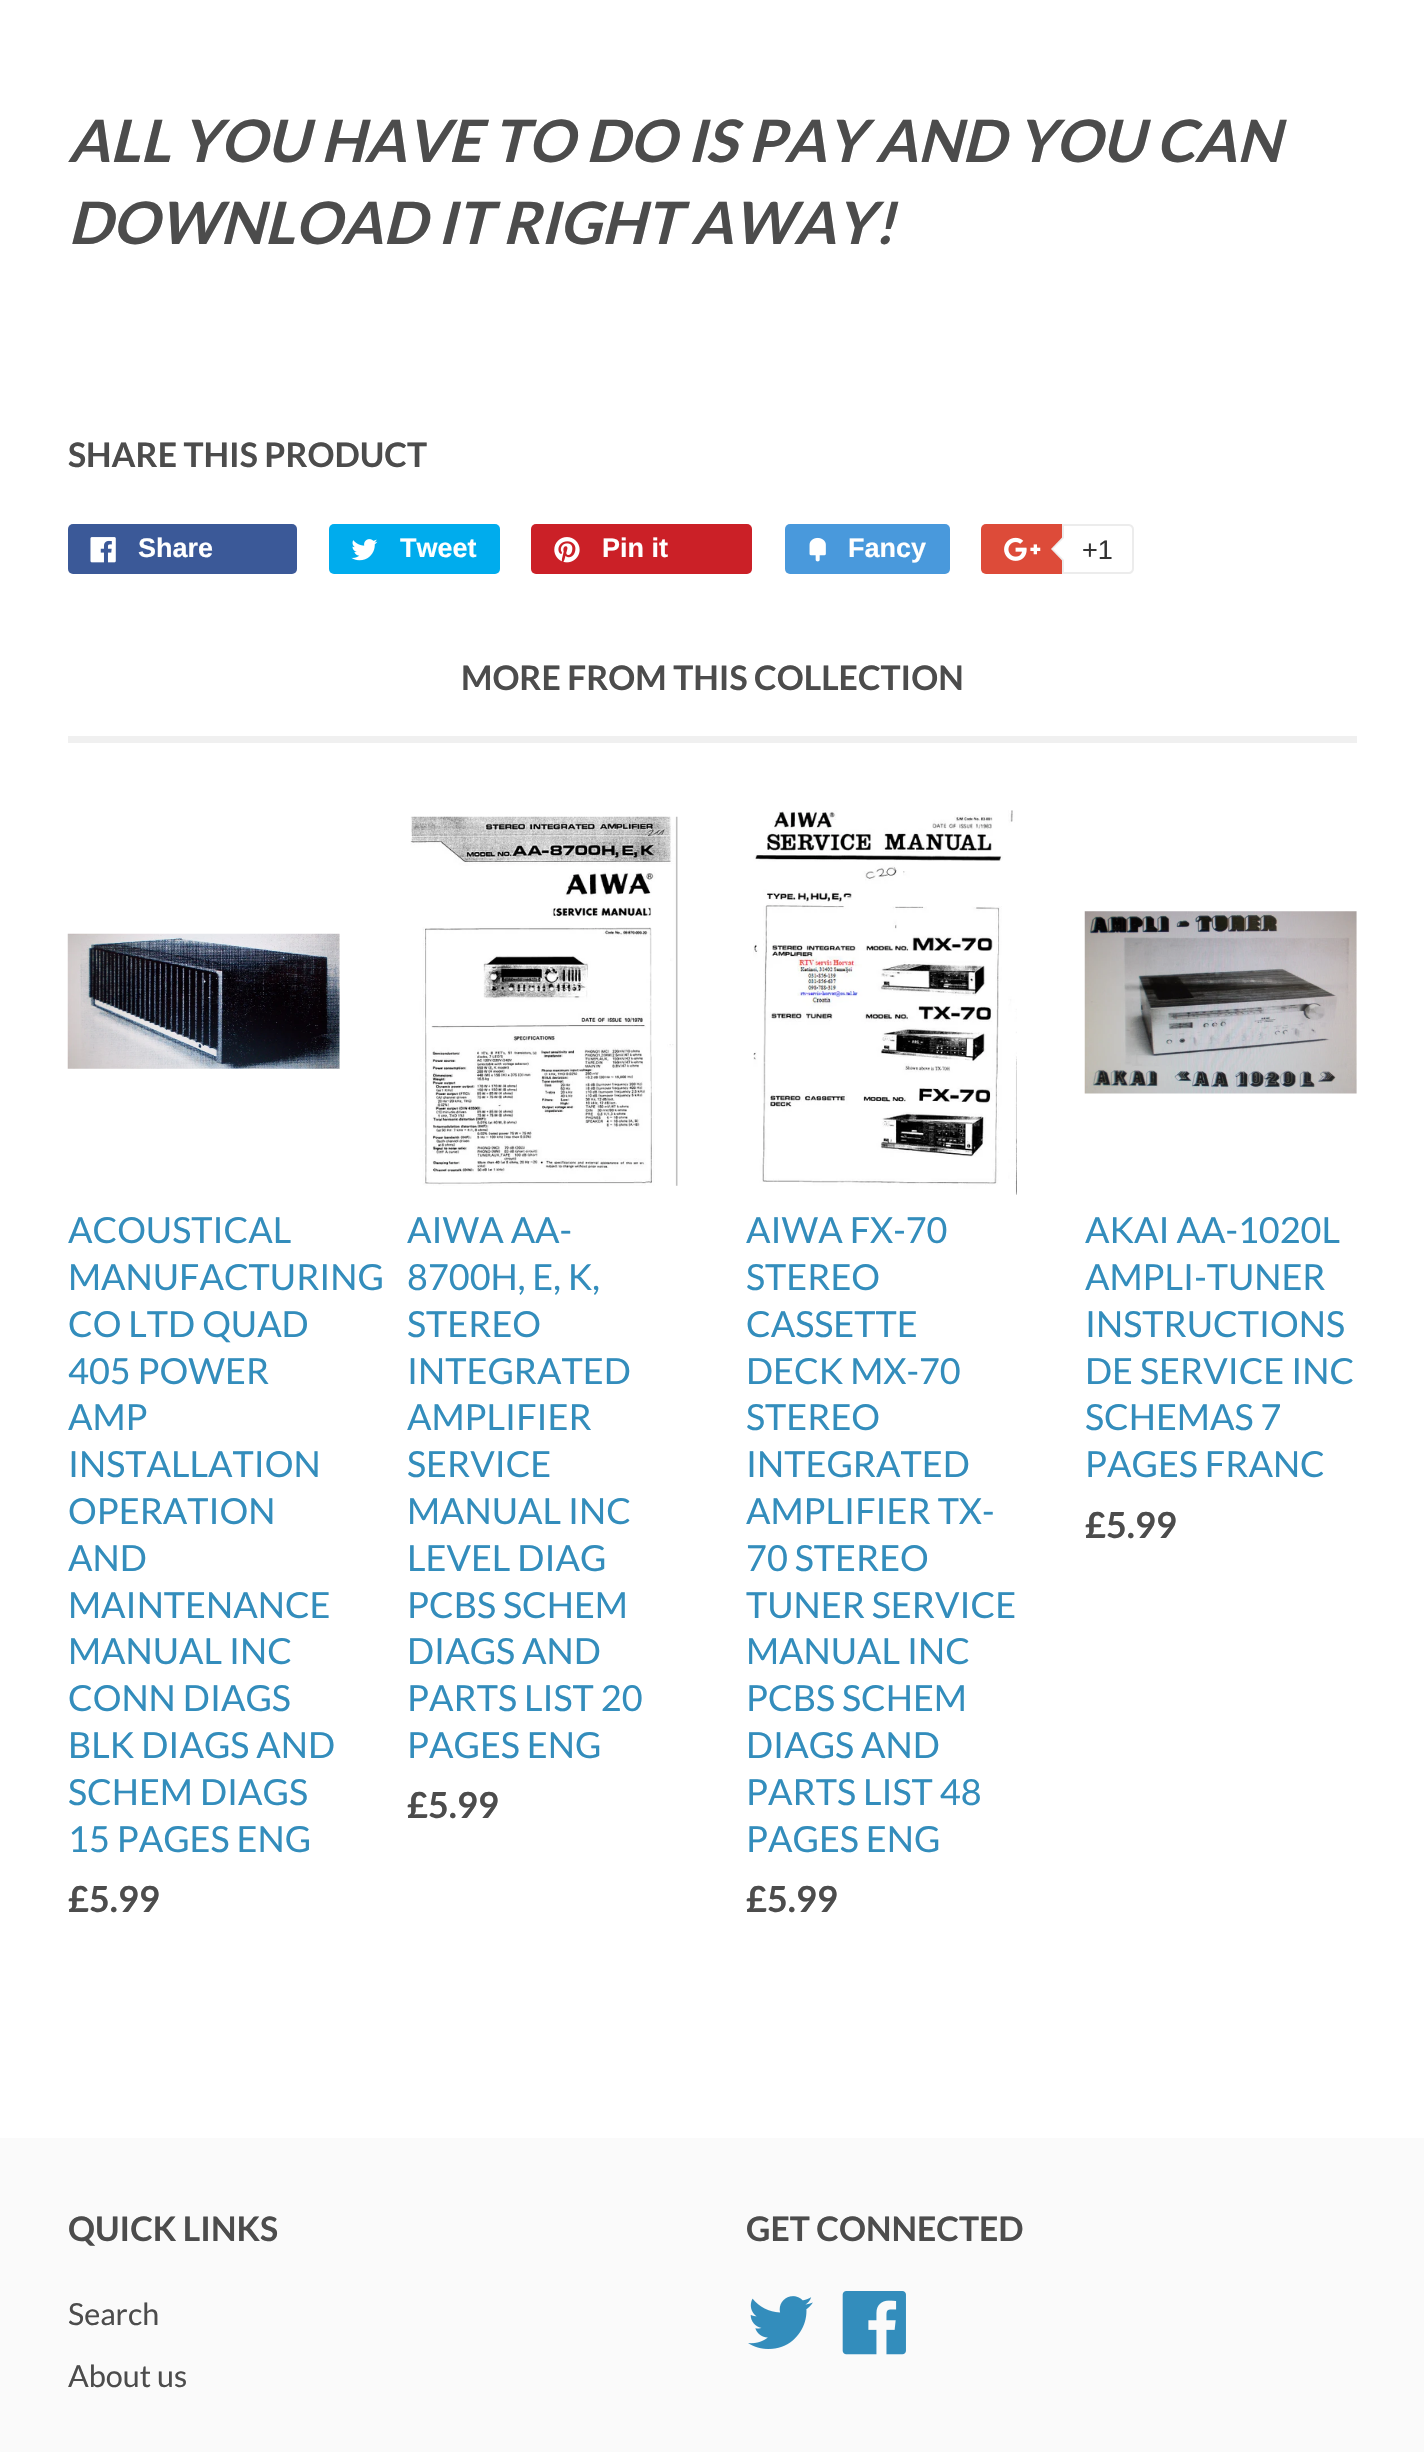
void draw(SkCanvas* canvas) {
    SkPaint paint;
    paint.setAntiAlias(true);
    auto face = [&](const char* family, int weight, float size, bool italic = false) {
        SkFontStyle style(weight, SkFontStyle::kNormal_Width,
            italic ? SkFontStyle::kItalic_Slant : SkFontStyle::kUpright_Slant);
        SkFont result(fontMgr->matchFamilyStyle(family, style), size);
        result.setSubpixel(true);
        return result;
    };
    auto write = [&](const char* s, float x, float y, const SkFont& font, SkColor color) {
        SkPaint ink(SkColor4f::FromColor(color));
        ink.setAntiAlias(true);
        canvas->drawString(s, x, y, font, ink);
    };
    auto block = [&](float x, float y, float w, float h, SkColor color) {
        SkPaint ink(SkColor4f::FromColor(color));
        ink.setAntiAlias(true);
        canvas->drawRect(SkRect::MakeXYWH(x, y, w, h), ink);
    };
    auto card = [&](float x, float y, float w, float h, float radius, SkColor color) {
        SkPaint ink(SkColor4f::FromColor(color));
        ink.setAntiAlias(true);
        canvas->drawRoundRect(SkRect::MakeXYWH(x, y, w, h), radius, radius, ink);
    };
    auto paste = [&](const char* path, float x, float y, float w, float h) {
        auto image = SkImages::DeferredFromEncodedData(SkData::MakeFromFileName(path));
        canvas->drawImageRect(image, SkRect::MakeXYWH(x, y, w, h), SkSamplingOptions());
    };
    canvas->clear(SK_ColorWHITE);
    auto kFont1 = face("Lato", 700, 58.5f, true);
    write("ALL YOU HAVE TO DO IS PAY AND YOU CAN", 68, 162, kFont1, SkColorSetRGB(76, 76, 76));
    write("DOWNLOAD IT RIGHT AWAY!", 68, 244, kFont1, SkColorSetRGB(76, 76, 76));
    auto kFont2 = face("Lato", 700, 33.75f);
    write("SHARE THIS PRODUCT", 68, 467, kFont2, SkColorSetRGB(76, 76, 76));
    card(68, 524, 229, 50, 5, SkColorSetRGB(59, 89, 152));
    paste("pic1.png", 90, 537, 26, 26);
    auto kFont3 = face("Liberation Sans", 700, 27);
    write("Share", 138, 557, kFont3, SK_ColorWHITE);
    card(329, 524, 171, 50, 5, SkColorSetRGB(0, 172, 237));
    paste("pic2.png", 351, 539, 27, 22);
    write("Tweet", 400, 557, kFont3, SK_ColorWHITE);
    card(531, 524, 221, 50, 5, SkColorSetRGB(203, 32, 39));
    paste("pic3.png", 554, 537, 26, 26);
    write("Pin it", 602, 557, kFont3, SK_ColorWHITE);
    card(785, 524, 165, 50, 5, SkColorSetRGB(73, 153, 220));
    paste("pic4.png", 809, 537, 17, 25);
    write("Fancy", 848, 557, kFont3, SK_ColorWHITE);
    card(981, 524, 149, 50, 5, SkColorSetRGB(221, 75, 57));
    paste("pic5.png", 1004, 537, 37, 24);
    paint.setColor(SK_ColorWHITE);
    canvas->drawPath(SkPathBuilder().moveTo(1063, 525).lineTo(1129, 525).cubicTo(1131, 525, 1133, 527, 1133, 529).lineTo(1133, 569).cubicTo(1133, 571, 1131, 573, 1129, 573).lineTo(1063, 573).close().detach(), paint);
    paint.setStyle(SkPaint::kStroke_Style);
    paint.setStrokeWidth(2);
    paint.setColor(SkColorSetRGB(236, 236, 236));
    canvas->drawPath(SkPathBuilder().moveTo(1063, 525).lineTo(1129, 525).cubicTo(1131, 525, 1133, 527, 1133, 529).lineTo(1133, 569).cubicTo(1133, 571, 1131, 573, 1129, 573).lineTo(1063, 573).close().detach(), paint);
    paint.setStyle(SkPaint::kFill_Style);
    canvas->drawPath(SkPathBuilder().moveTo(1064, 535.5f).lineTo(1064, 562.5f).lineTo(1051, 549).close().detach(), paint);
    paint.setColor(SK_ColorWHITE);
    canvas->drawPath(SkPathBuilder().moveTo(1066.5f, 535.5f).lineTo(1066.5f, 562.5f).lineTo(1053, 549).close().detach(), paint);
    auto kFont4 = face("Liberation Sans", 400, 27);
    write("+1", 1082, 559, kFont4, SkColorSetRGB(51, 51, 51));
    block(68, 736, 1289, 7, SkColorSetRGB(240, 240, 240));
    write("MORE FROM THIS COLLECTION", 461, 690, kFont2, SkColorSetRGB(76, 76, 76));
    paste("pic6.png", 67, 933, 273, 136);
    auto kFont5 = face("Lato", 400, 36);
    write("ACOUSTICAL", 68, 1243, kFont5, SkColorSetRGB(51, 141, 188));
    write("MANUFACTURING", 68, 1290, kFont5, SkColorSetRGB(51, 141, 188));
    write("CO LTD QUAD", 68, 1337, kFont5, SkColorSetRGB(51, 141, 188));
    write("405 POWER", 68, 1384, kFont5, SkColorSetRGB(51, 141, 188));
    write("AMP", 68, 1430, kFont5, SkColorSetRGB(51, 141, 188));
    write("INSTALLATION", 68, 1477, kFont5, SkColorSetRGB(51, 141, 188));
    write("OPERATION", 68, 1524, kFont5, SkColorSetRGB(51, 141, 188));
    write("AND", 68, 1571, kFont5, SkColorSetRGB(51, 141, 188));
    write("MAINTENANCE", 68, 1618, kFont5, SkColorSetRGB(51, 141, 188));
    write("MANUAL INC", 68, 1664, kFont5, SkColorSetRGB(51, 141, 188));
    write("CONN DIAGS", 68, 1711, kFont5, SkColorSetRGB(51, 141, 188));
    write("BLK DIAGS AND", 68, 1758, kFont5, SkColorSetRGB(51, 141, 188));
    write("SCHEM DIAGS", 68, 1805, kFont5, SkColorSetRGB(51, 141, 188));
    write("15 PAGES ENG", 68, 1852, kFont5, SkColorSetRGB(51, 141, 188));
    auto kFont6 = face("Lato", 700, 36);
    write("£5.99", 68, 1912, kFont6, SkColorSetRGB(76, 76, 76));
    paste("pic7.png", 410, 816, 268, 370);
    write("AIWA AA-", 407, 1243, kFont5, SkColorSetRGB(51, 141, 188));
    write("8700H, E, K,", 407, 1290, kFont5, SkColorSetRGB(51, 141, 188));
    write("STEREO", 407, 1337, kFont5, SkColorSetRGB(51, 141, 188));
    write("INTEGRATED", 407, 1384, kFont5, SkColorSetRGB(51, 141, 188));
    write("AMPLIFIER", 407, 1430, kFont5, SkColorSetRGB(51, 141, 188));
    write("SERVICE", 407, 1477, kFont5, SkColorSetRGB(51, 141, 188));
    write("MANUAL INC", 407, 1524, kFont5, SkColorSetRGB(51, 141, 188));
    write("LEVEL DIAG", 407, 1571, kFont5, SkColorSetRGB(51, 141, 188));
    write("PCBS SCHEM", 407, 1618, kFont5, SkColorSetRGB(51, 141, 188));
    write("DIAGS AND", 407, 1664, kFont5, SkColorSetRGB(51, 141, 188));
    write("PARTS LIST 20", 407, 1711, kFont5, SkColorSetRGB(51, 141, 188));
    write("PAGES ENG", 407, 1758, kFont5, SkColorSetRGB(51, 141, 188));
    write("£5.99", 407, 1818, kFont6, SkColorSetRGB(76, 76, 76));
    paste("pic8.png", 753, 810, 264, 385);
    write("AIWA FX-70", 746, 1243, kFont5, SkColorSetRGB(51, 141, 188));
    write("STEREO", 746, 1290, kFont5, SkColorSetRGB(51, 141, 188));
    write("CASSETTE", 746, 1337, kFont5, SkColorSetRGB(51, 141, 188));
    write("DECK MX-70", 746, 1384, kFont5, SkColorSetRGB(51, 141, 188));
    write("STEREO", 746, 1430, kFont5, SkColorSetRGB(51, 141, 188));
    write("INTEGRATED", 746, 1477, kFont5, SkColorSetRGB(51, 141, 188));
    write("AMPLIFIER TX-", 746, 1524, kFont5, SkColorSetRGB(51, 141, 188));
    write("70 STEREO", 746, 1571, kFont5, SkColorSetRGB(51, 141, 188));
    write("TUNER SERVICE", 746, 1618, kFont5, SkColorSetRGB(51, 141, 188));
    write("MANUAL INC", 746, 1664, kFont5, SkColorSetRGB(51, 141, 188));
    write("PCBS SCHEM", 746, 1711, kFont5, SkColorSetRGB(51, 141, 188));
    write("DIAGS AND", 746, 1758, kFont5, SkColorSetRGB(51, 141, 188));
    write("PARTS LIST 48", 746, 1805, kFont5, SkColorSetRGB(51, 141, 188));
    write("PAGES ENG", 746, 1852, kFont5, SkColorSetRGB(51, 141, 188));
    write("£5.99", 746, 1912, kFont6, SkColorSetRGB(76, 76, 76));
    paste("pic9.png", 1084, 911, 273, 183);
    write("AKAI AA-1020L", 1085, 1243, kFont5, SkColorSetRGB(51, 141, 188));
    write("AMPLI-TUNER", 1085, 1290, kFont5, SkColorSetRGB(51, 141, 188));
    write("INSTRUCTIONS", 1085, 1337, kFont5, SkColorSetRGB(51, 141, 188));
    write("DE SERVICE INC", 1085, 1384, kFont5, SkColorSetRGB(51, 141, 188));
    write("SCHEMAS 7", 1085, 1430, kFont5, SkColorSetRGB(51, 141, 188));
    write("PAGES FRANC", 1085, 1477, kFont5, SkColorSetRGB(51, 141, 188));
    write("£5.99", 1085, 1538, kFont6, SkColorSetRGB(76, 76, 76));
    block(0, 2138, 1424, 314, SkColorSetRGB(250, 250, 250));
    write("QUICK LINKS", 68, 2241, kFont2, SkColorSetRGB(76, 76, 76));
    auto kFont7 = face("Lato", 400, 30.5f);
    write("Search", 68, 2325, kFont7, SkColorSetRGB(76, 76, 76));
    write("About us", 68, 2387, kFont7, SkColorSetRGB(76, 76, 76));
    write("GET CONNECTED", 746, 2241, kFont2, SkColorSetRGB(76, 76, 76));
    paste("pic10.png", 748, 2296, 65, 53);
    paste("pic11.png", 842, 2291, 64, 64);
}
